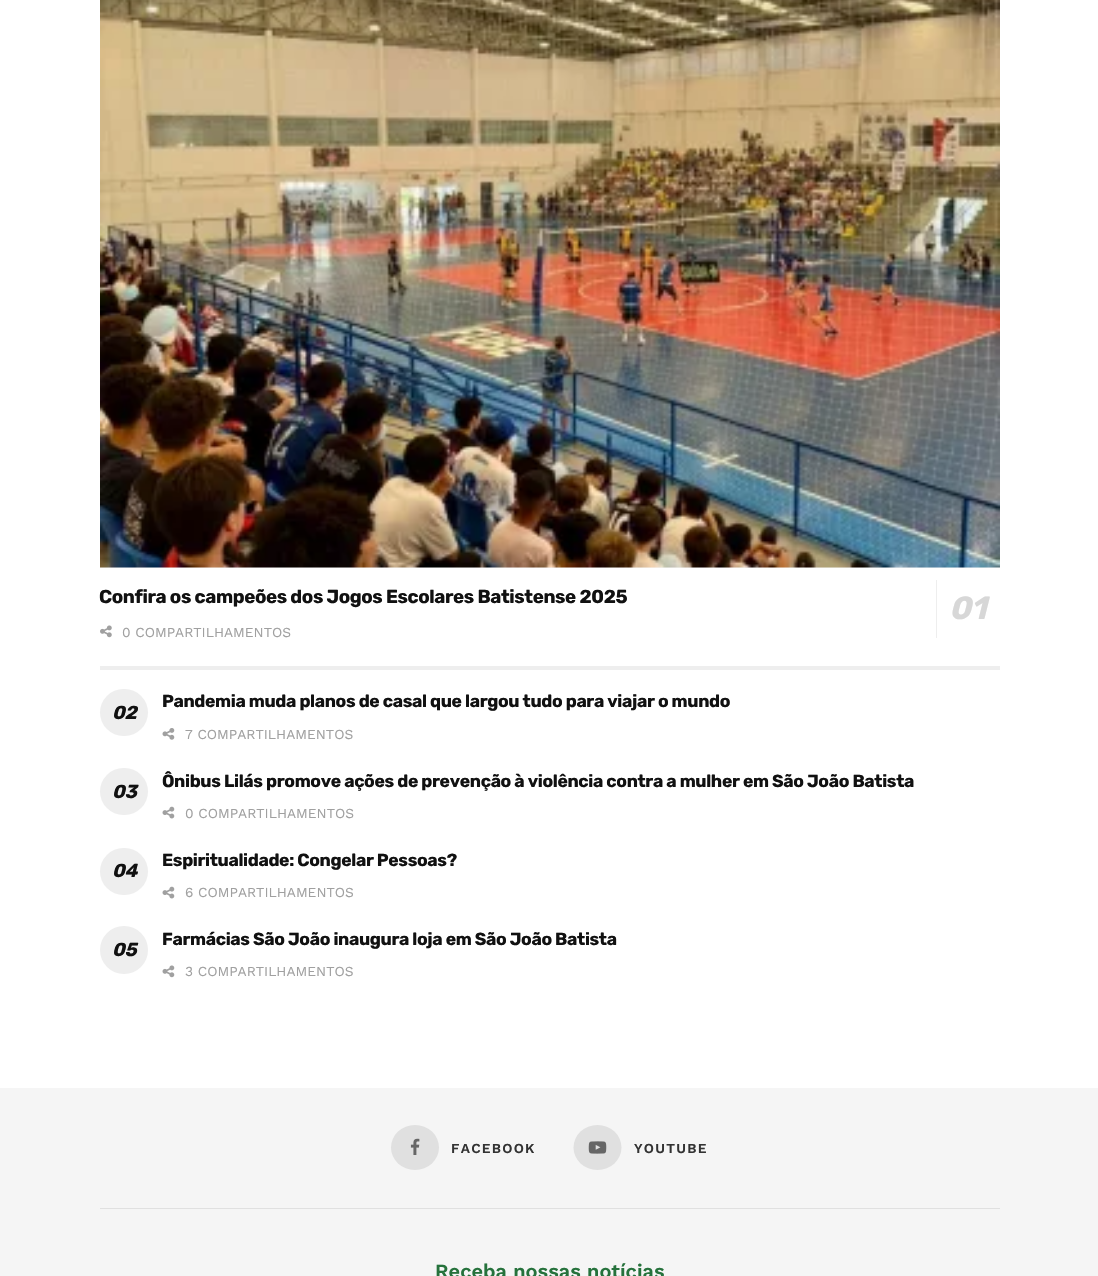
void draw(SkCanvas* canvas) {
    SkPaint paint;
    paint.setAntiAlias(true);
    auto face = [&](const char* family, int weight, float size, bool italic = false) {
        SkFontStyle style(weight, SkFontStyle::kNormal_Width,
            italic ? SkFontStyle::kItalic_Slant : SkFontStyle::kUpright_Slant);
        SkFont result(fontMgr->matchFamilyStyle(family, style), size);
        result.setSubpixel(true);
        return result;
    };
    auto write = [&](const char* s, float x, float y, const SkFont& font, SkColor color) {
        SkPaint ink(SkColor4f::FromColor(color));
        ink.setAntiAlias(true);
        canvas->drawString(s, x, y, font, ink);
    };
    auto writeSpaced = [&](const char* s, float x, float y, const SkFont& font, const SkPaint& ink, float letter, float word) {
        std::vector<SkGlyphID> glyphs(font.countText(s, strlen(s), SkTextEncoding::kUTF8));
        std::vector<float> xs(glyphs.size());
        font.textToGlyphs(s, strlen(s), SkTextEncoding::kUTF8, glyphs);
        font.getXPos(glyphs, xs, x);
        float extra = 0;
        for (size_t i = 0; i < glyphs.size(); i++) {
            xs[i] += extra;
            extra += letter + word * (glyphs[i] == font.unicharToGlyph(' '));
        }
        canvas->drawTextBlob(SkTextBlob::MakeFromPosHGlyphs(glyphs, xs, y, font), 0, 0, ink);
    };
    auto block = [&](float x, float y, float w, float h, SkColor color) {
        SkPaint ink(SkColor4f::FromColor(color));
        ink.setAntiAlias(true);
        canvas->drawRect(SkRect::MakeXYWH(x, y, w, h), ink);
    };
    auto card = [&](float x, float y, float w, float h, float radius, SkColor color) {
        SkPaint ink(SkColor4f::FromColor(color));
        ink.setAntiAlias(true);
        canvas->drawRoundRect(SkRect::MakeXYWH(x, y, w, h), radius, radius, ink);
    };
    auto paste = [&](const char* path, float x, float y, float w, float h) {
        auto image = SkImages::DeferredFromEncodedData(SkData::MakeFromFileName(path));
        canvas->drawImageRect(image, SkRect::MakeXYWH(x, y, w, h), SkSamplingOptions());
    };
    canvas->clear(SK_ColorWHITE);
    block(100, 666, 900, 4, SkColorSetRGB(238, 238, 238));
    block(100, 567, 900, 1, SkColorSetRGB(247, 247, 247));
    paste("pic1.png", 100, 0, 900, 568);
    auto kFont1 = face("Rubik", 300, 18.75f);
    paint.setColor(SkColorSetRGB(17, 17, 17));
    writeSpaced("Confira os campeões dos Jogos Escolares Batistense 2025", 99, 603, kFont1, paint, -0.38f, 0);
    block(936, 580, 1, 58, SkColorSetRGB(238, 238, 238));
    auto kFont2 = face("Rubik", 300, 32, true);
    paint.setColor(SkColorSetRGB(215, 215, 215));
    writeSpaced("01", 949, 619, kFont2, paint, -0.38f, 0);
    paste("pic2.png", 100, 625, 12, 13);
    auto kFont3 = face("Work Sans", 400, 13.75f);
    write("0 COMPARTILHAMENTOS", 122, 637, kFont3, SkColorSetRGB(160, 160, 160));
    auto kFont4 = face("Rubik", 300, 17.5f);
    paint.setColor(SkColorSetRGB(17, 17, 17));
    writeSpaced("Pandemia muda planos de casal que largou tudo para viajar o mundo", 162, 707, kFont4, paint, -0.35f, 0);
    card(100, 689, 48, 47, 23.5f, SkColorSetRGB(238, 238, 238));
    auto kFont5 = face("Rubik", 300, 18.75f, true);
    writeSpaced("02", 112, 719, kFont5, paint, -0.35f, 0);
    paste("pic3.png", 162, 728, 13, 12);
    write("7 COMPARTILHAMENTOS", 185, 739, kFont3, SkColorSetRGB(160, 160, 160));
    card(100, 768, 48, 47, 23.5f, SkColorSetRGB(238, 238, 238));
    writeSpaced("03", 112, 798, kFont5, paint, -0.35f, 0);
    writeSpaced("Ônibus Lilás promove ações de prevenção à violência contra a mulher em São João Batista", 162, 787, kFont4, paint, -0.35f, 0);
    paste("pic4.png", 162, 806, 13, 13);
    write("0 COMPARTILHAMENTOS", 185, 818, kFont3, SkColorSetRGB(160, 160, 160));
    card(100, 848, 48, 47, 23.5f, SkColorSetRGB(238, 238, 238));
    writeSpaced("04", 112, 877, kFont5, paint, -0.35f, 0);
    writeSpaced("Espiritualidade: Congelar Pessoas?", 162, 866, kFont4, paint, -0.35f, 0);
    paste("pic4.png", 162, 886, 13, 13);
    write("6 COMPARTILHAMENTOS", 185, 897, kFont3, SkColorSetRGB(160, 160, 160));
    paint.setColor(SkColorSetRGB(238, 238, 238));
    canvas->drawCircle(124, 950, 24, paint);
    paint.setColor(SkColorSetRGB(17, 17, 17));
    writeSpaced("05", 112, 956, kFont5, paint, -0.35f, 0);
    writeSpaced("Farmácias São João inaugura loja em São João Batista", 162, 945, kFont4, paint, -0.35f, 0);
    paste("pic5.png", 162, 965, 13, 13);
    write("3 COMPARTILHAMENTOS", 185, 976, kFont3, SkColorSetRGB(160, 160, 160));
    block(0, 1088, 1098, 188, SkColorSetRGB(245, 245, 245));
    block(100, 1208, 900, 1, SkColorSetRGB(224, 224, 224));
    paint.setColor(SkColorSetRGB(224, 224, 224));
    canvas->drawOval(SkRect::MakeXYWH(391, 1125, 48, 45), paint);
    paste("pic6.png", 410, 1138, 10, 17);
    auto kFont6 = face("Work Sans", 600, 13.75f);
    paint.setColor(SkColorSetRGB(51, 51, 51));
    writeSpaced("FACEBOOK", 451, 1153, kFont6, paint, 1.25f, 0);
    paint.setColor(SkColorSetRGB(224, 224, 224));
    canvas->drawOval(SkRect::MakeXYWH(573.5f, 1125, 48, 45), paint);
    paste("pic7.png", 588, 1141, 19, 13);
    paint.setColor(SkColorSetRGB(51, 51, 51));
    writeSpaced("YOUTUBE", 634, 1153, kFont6, paint, 1.25f, 0);
    auto kFont7 = face("Work Sans", 600, 20);
    write("Receba nossas notícias", 435, 1278, kFont7, SkColorSetRGB(38, 114, 60));
}
